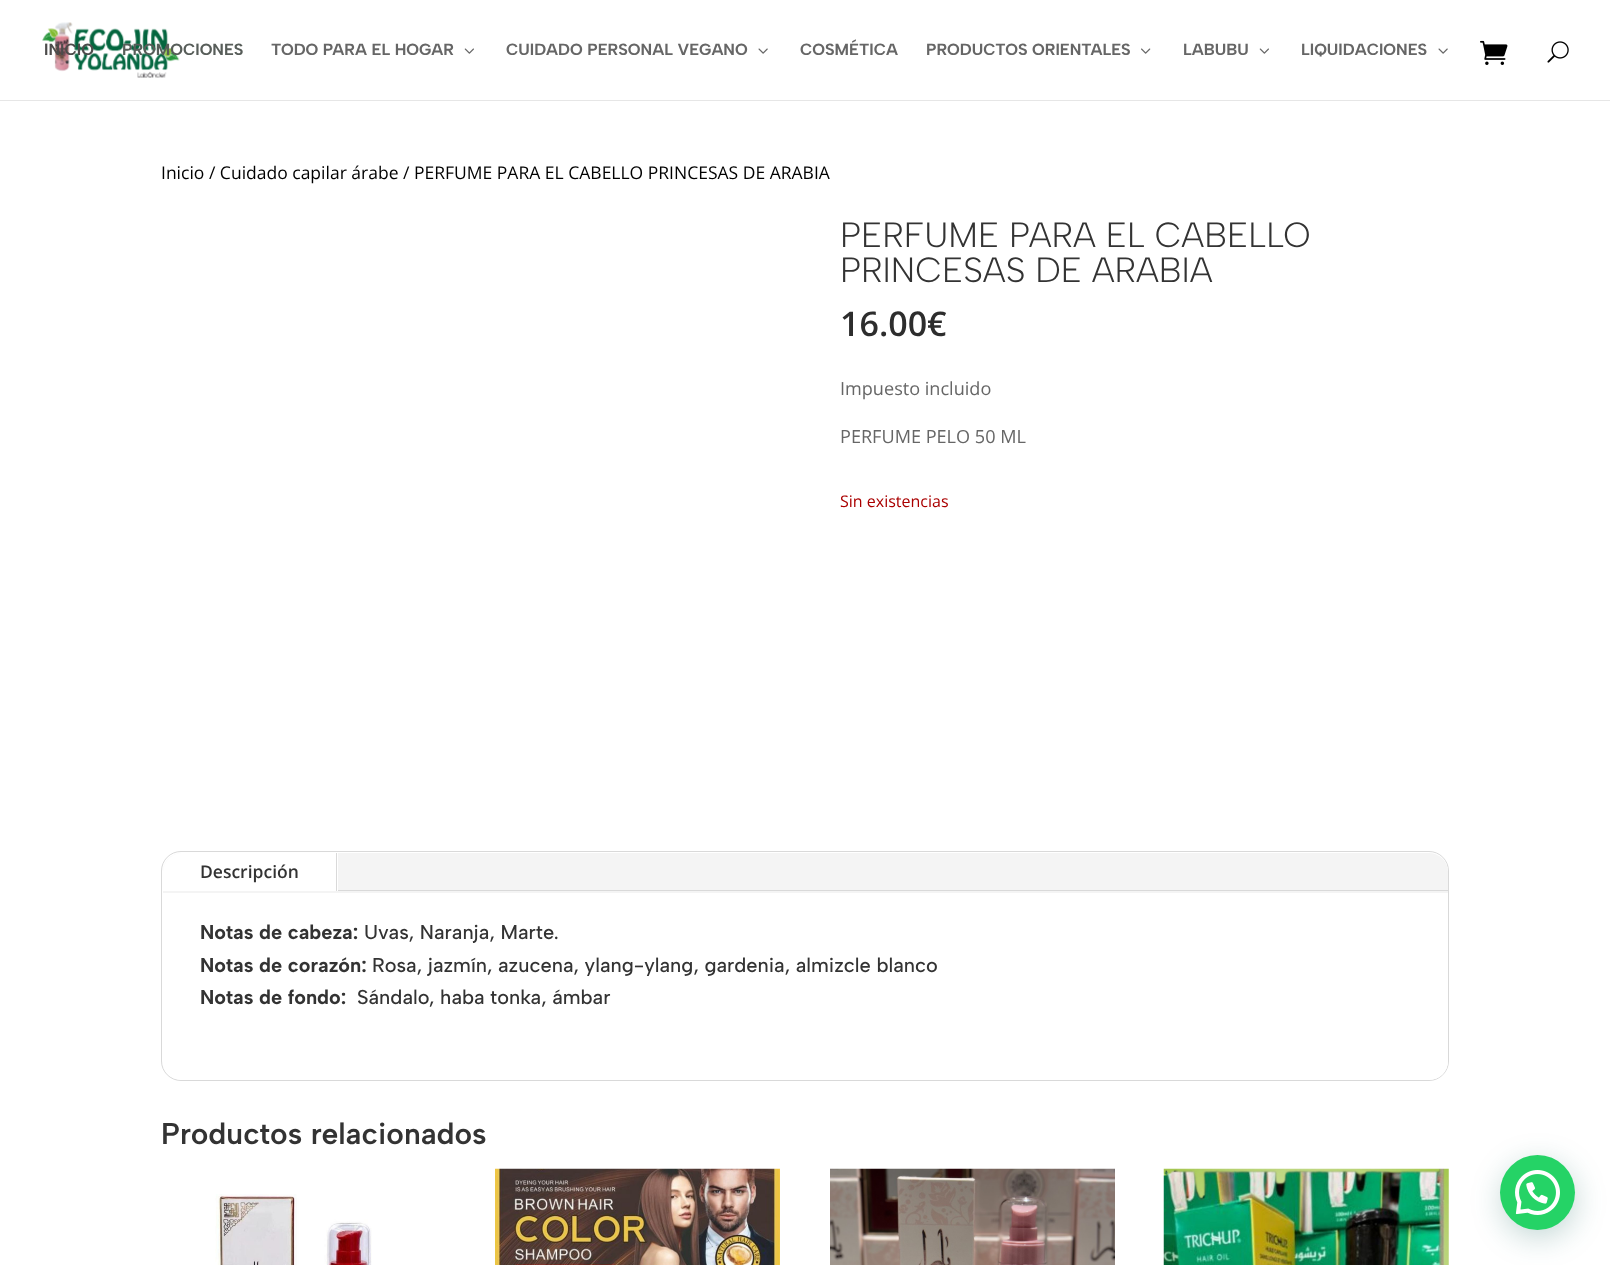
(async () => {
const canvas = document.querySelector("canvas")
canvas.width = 1610
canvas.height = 1265
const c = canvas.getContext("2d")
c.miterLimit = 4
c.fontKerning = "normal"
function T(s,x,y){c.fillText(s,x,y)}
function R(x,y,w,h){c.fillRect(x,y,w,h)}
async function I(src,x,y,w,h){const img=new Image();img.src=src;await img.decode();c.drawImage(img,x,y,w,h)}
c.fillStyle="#fff"
R(0,0,1610,1265)
c.fillStyle="#e6e6e6"
R(0,100,1610,1)
await I("1.png",42,22,138,56)
c.font="bold 16.25px Albert Sans"
c.fillStyle="#4d4c4b"
T("INICIO",44,55)
c.fillStyle="#575d59"
T("PROMOCIONES",122,55)
c.fillStyle="#666"
T("TODO PARA EL HOGAR",271,55)
await I("2.png",464,48,10,6)
T("CUIDADO PERSONAL VEGANO",506,55)
await I("3.png",758,48,10,6)
T("COSMÉTICA",800,55)
T("PRODUCTOS ORIENTALES",926,55)
await I("4.png",1141,48,10,6)
T("LABUBU",1183,55)
await I("2.png",1259,48,10,6)
T("LIQUIDACIONES",1301,55)
await I("3.png",1438,48,10,6)
await I("5.png",1480,40,28,25)
await I("6.png",1547,41,22,22)
c.font="17.5px Open Sans"
c.fillStyle="#000"
T("Inicio / Cuidado capilar árabe / PERFUME PARA EL CABELLO PRINCESAS DE ARABIA",161,179)
c.font="300 35px Albert Sans"
c.fillStyle="#333"
T("PERFUME PARA EL CABELLO",840,247)
T("PRINCESAS DE ARABIA",840,282)
c.font="600 34px Open Sans"
c.fillStyle="#2d2d2d"
T("16.00€",840,336)
c.font="18.1px Open Sans"
c.fillStyle="#666"
T("Impuesto incluido",840,395)
T("PERFUME PELO 50 ML",840,443)
c.font="16px Open Sans"
c.fillStyle="#a00"
T("Sin existencias",840,507)
c.beginPath()
c.roundRect(161.5,851.5,1287,229,19.5)
c.strokeStyle="#d9d9d9"
c.stroke()
c.fillStyle="#f4f4f4"
c.beginPath()
c.roundRect(163,853,1285,40,[19,19,0,0])
c.fill()
c.fillStyle="#fff"
c.beginPath()
c.roundRect(163,853,175,38,[19,0,0,0])
c.fill()
c.fillStyle="#d9d9d9"
R(336,853,1,38)
c.font="600 17.5px Open Sans"
c.fillStyle="#333"
T("Descripción",200,878)
c.fillStyle="#d9d9d9"
R(338,890,1110,1)
c.fillStyle="#fff"
c.beginPath()
c.roundRect(163,893,1285,187,[0,0,19,19])
c.fill()
c.font="bold 20px Albert Sans"
c.fillStyle="#333"
T("Notas de cabeza:",200,939)
c.font="500 20px Albert Sans"
T("Uvas, Naranja, Marte.",364,939)
c.font="bold 20px Albert Sans"
T("Notas de corazón:",200,972)
c.font="500 20px Albert Sans"
T("Rosa, jazmín, azucena, ylang-ylang, gardenia, almizcle blanco",372,972)
c.font="bold 20px Albert Sans"
T("Notas de fondo:",200,1004)
c.font="500 20px Albert Sans"
T("Sándalo, haba tonka, ámbar",357,1004)
c.font="600 30px Albert Sans"
T("Productos relacionados",161,1144)
await I("7.png",215,1194,157,71)
await I("8.png",495,1168,285,97)
await I("9.png",830,1168,285,97)
await I("10.png",1163,1168,286,97)
c.fillStyle="#075e543d"
c.filter="blur(15px)"
c.beginPath()
c.roundRect(1501,1163,75,75,37.5)
c.fill()
c.filter="none"
c.fillStyle="#25d366"
c.beginPath()
c.arc(1537.5,1192.5,37.5,0,7)
c.fill()
await I("11.png",1515,1170,45,45)
})()
